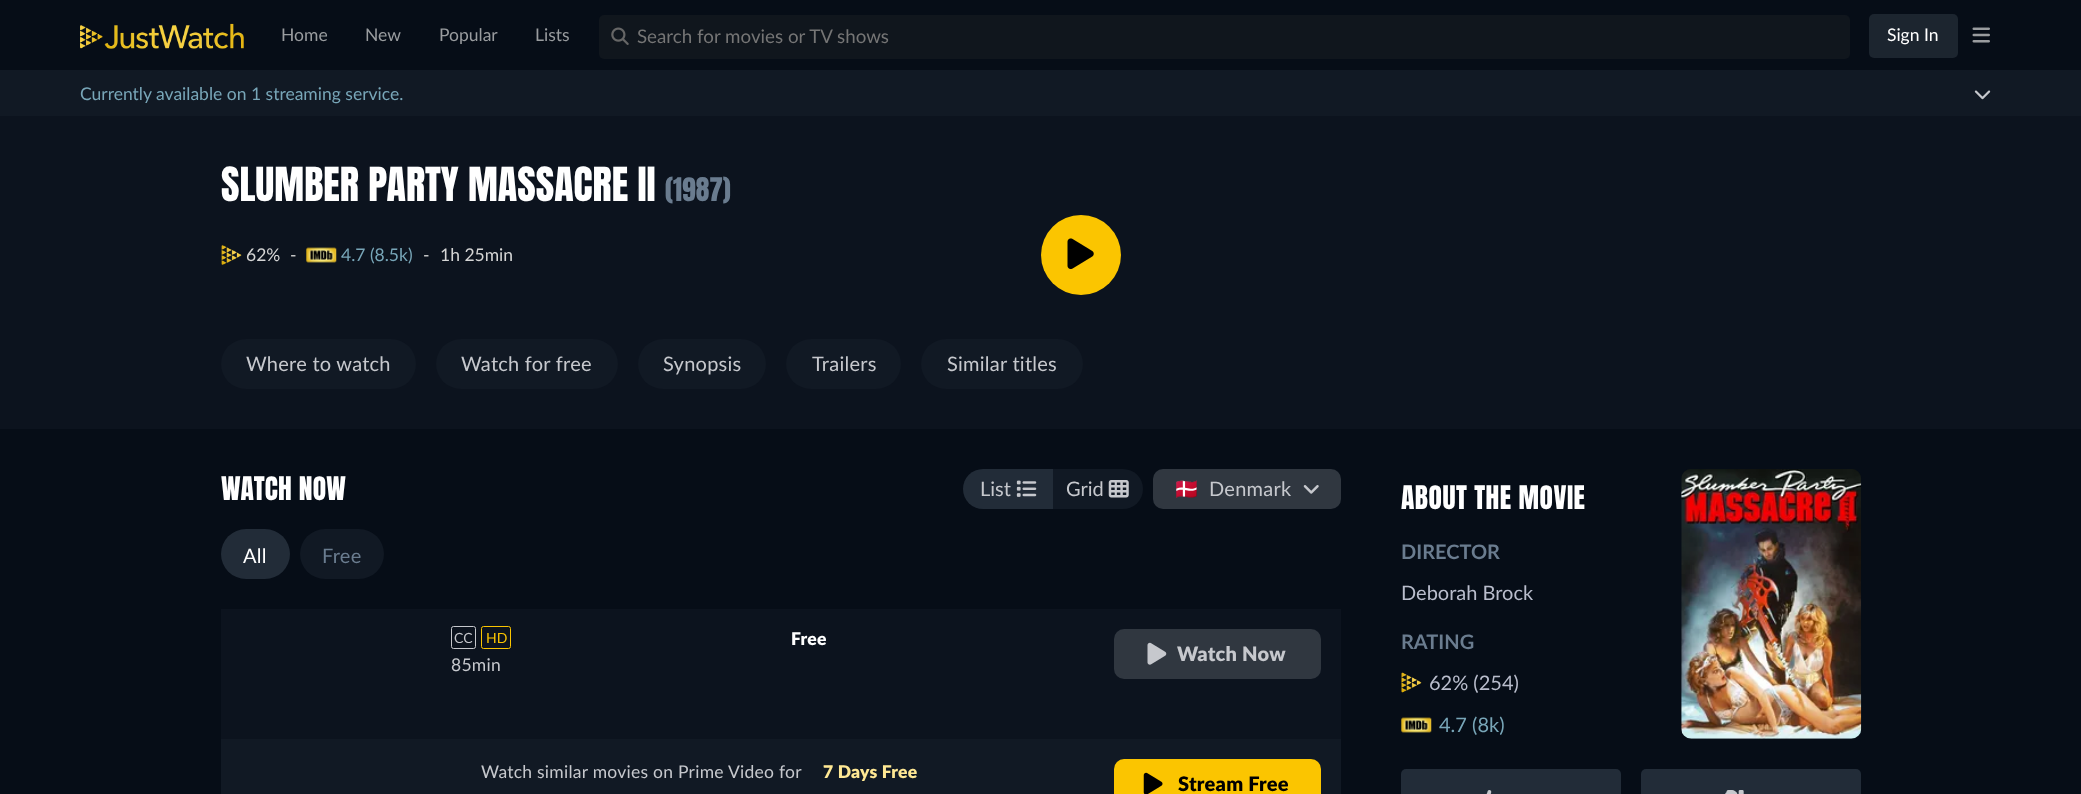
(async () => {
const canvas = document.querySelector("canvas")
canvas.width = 2081
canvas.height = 794
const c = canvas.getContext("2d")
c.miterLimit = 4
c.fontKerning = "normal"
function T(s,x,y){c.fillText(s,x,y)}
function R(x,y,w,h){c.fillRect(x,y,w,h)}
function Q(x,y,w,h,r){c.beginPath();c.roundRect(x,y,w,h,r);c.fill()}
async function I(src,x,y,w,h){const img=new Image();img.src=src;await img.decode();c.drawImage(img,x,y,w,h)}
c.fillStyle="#060d17"
R(0,0,2081,794)
await I("1.png",80,23,164,26)
c.font="17.5px Lato"
c.fillStyle="#999c9f"
T("Home",281,41)
T("New",365,41)
T("Popular",439,41)
T("Lists",535,41)
c.fillStyle="#10161d"
Q(599,15,1251,44,5)
await I("2.png",611,27,18,18)
c.font="18.75px Lato"
c.fillStyle="#757575"
T("Search for movies or TV shows",637,43)
c.fillStyle="#1c252f"
Q(1869,14,89,44,5)
c.font="17.5px Lato"
c.fillStyle="#fff"
T("Sign In",1887,41)
await I("3.png",1972,27,18,16)
c.fillStyle="#111924"
R(0,70,2081,46)
c.fillStyle="#78a6b8"
T("Currently available on 1 streaming service.",80,100)
await I("4.png",1974,90,17,10)
c.fillStyle="#0c131e"
R(0,116,2081,313)
c.font="40px Anton"
c.fillStyle="#fff"
T("SLUMBER PARTY MASSACRE II",221,201)
c.font="27.5px Anton"
c.fillStyle="#6a7c8f"
T("(1987)",665,201)
await I("5.png",221,245,21,20)
c.font="17.5px Lato"
c.fillStyle="#d5d5d5"
T("62%",246,261)
T("-",290,261)
await I("6.png",306,247,31,16)
c.fillStyle="#78a6b8"
T("4.7 (8.5k)",341,261)
c.fillStyle="#d5d5d5"
T("-",423,261)
T("1h 25min",440,261)
c.fillStyle="#111924"
Q(221,339,195,50,25)
c.letterSpacing="0.25px"
c.font="20px Lato"
c.fillStyle="#c6c8cd"
T("Where to watch",246,371)
c.fillStyle="#111924"
Q(436,339,182,50,25)
c.fillStyle="#c6c8cd"
T("Watch for free",461,371)
c.fillStyle="#111924"
Q(638,339,128,50,25)
c.fillStyle="#c6c8cd"
T("Synopsis",663,371)
c.fillStyle="#111924"
Q(786,339,115,50,25)
c.fillStyle="#c6c8cd"
T("Trailers",812,371)
c.fillStyle="#111924"
Q(921,339,162,50,25)
c.fillStyle="#c6c8cd"
T("Similar titles",947,371)
c.fillStyle="#fbc500"
c.beginPath()
c.arc(1081,255,40,0,7)
c.fill()
await I("7.png",1067,238,27,32)
c.font="27.5px Anton"
c.fillStyle="#fff"
T("WATCH NOW",221,500)
c.fillStyle="#222c38"
c.beginPath()
c.roundRect(963,469,90,40,[20,0,0,20])
c.fill()
c.letterSpacing="0px"
c.font="20px Lato"
c.fillStyle="#c6c8cd"
T("List",980,496)
await I("8.png",1016,480,21,17)
c.fillStyle="#111924"
c.beginPath()
c.roundRect(1053,469,90,40,[0,20,20,0])
c.fill()
c.fillStyle="#c6c8cd"
T("Grid",1066,496)
await I("9.png",1108,480,21,18)
c.fillStyle="#303740"
Q(1153,469,188,40,10)
c.letterSpacing="0.25px"
c.font="20px Noto Color Emoji"
c.fillStyle="#c6c8cd"
T("🇩🇰",1174,496)
c.font="20px Lato"
T("Denmark",1209,496)
await I("10.png",1303,485,16,9)
c.fillStyle="#222c38"
Q(221,529,69,50,25)
c.fillStyle="#fff"
T("All",243,563)
c.fillStyle="#111924"
Q(300,529,84,50,25)
c.fillStyle="#6a7c8f"
T("Free",322,563)
c.fillStyle="#0c131e"
R(221,609,1120,130)
c.beginPath()
c.roundRect(451.5,626.5,24,22,2)
c.strokeStyle="#c6c8cd"
c.stroke()
c.letterSpacing="0px"
c.font="14px Lato"
c.fillStyle="#c6c8cd"
T("CC",454,643)
c.beginPath()
c.roundRect(481.5,626.5,29,22,2)
c.strokeStyle="#fbc500"
c.stroke()
c.fillStyle="#fbc500"
T("HD",486,643)
c.letterSpacing="0.25px"
c.font="17.5px Lato"
c.fillStyle="#c6c8cd"
T("85min",451,671)
c.font="900 17.5px Lato"
c.fillStyle="#fff"
T("Free",791,645)
c.fillStyle="#303740"
Q(1114,629,207,50,10)
await I("11.png",1147,642,20,23)
c.font="900 20px Lato"
c.fillStyle="#c6c8cd"
T("Watch Now",1177,661)
c.fillStyle="#111924"
R(221,739,1120,55)
c.font="17.5px Lato"
c.fillStyle="#c6c8cd"
T("Watch similar movies on Prime Video for",481,778)
c.font="900 17.5px Lato"
c.fillStyle="#ffe894"
T("7 Days Free",823,778)
c.fillStyle="#fbc500"
Q(1114,759,207,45,10)
await I("12.png",1143,772,20,22)
c.font="900 20px Lato"
c.fillStyle="#000"
T("Stream Free",1178,791)
c.letterSpacing="0.5px"
c.font="27.5px Anton"
c.fillStyle="#fff"
T("ABOUT THE MOVIE",1401,509)
c.letterSpacing="0px"
c.font="bold 20px Lato"
c.fillStyle="#6a7c8f"
T("DIRECTOR",1401,559)
c.font="20px Lato"
c.fillStyle="#b9bdcc"
T("Deborah Brock",1401,600)
c.font="bold 20px Lato"
c.fillStyle="#6a7c8f"
T("RATING",1401,649)
await I("13.png",1401,672,21,21)
c.font="20px Lato"
c.fillStyle="#b9bdcc"
T("62% (254)",1429,690)
await I("14.png",1401,717,31,16)
c.fillStyle="#78a6b8"
T("4.7 (8k)",1439,732)
await I("15.png",1681,469,181,270)
c.fillStyle="#222c38"
Q(1401,769,220,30,5)
await I("16.png",1486,790,6,4)
Q(1641,769,220,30,5)
await I("17.png",1725,790,19,4)
})()
